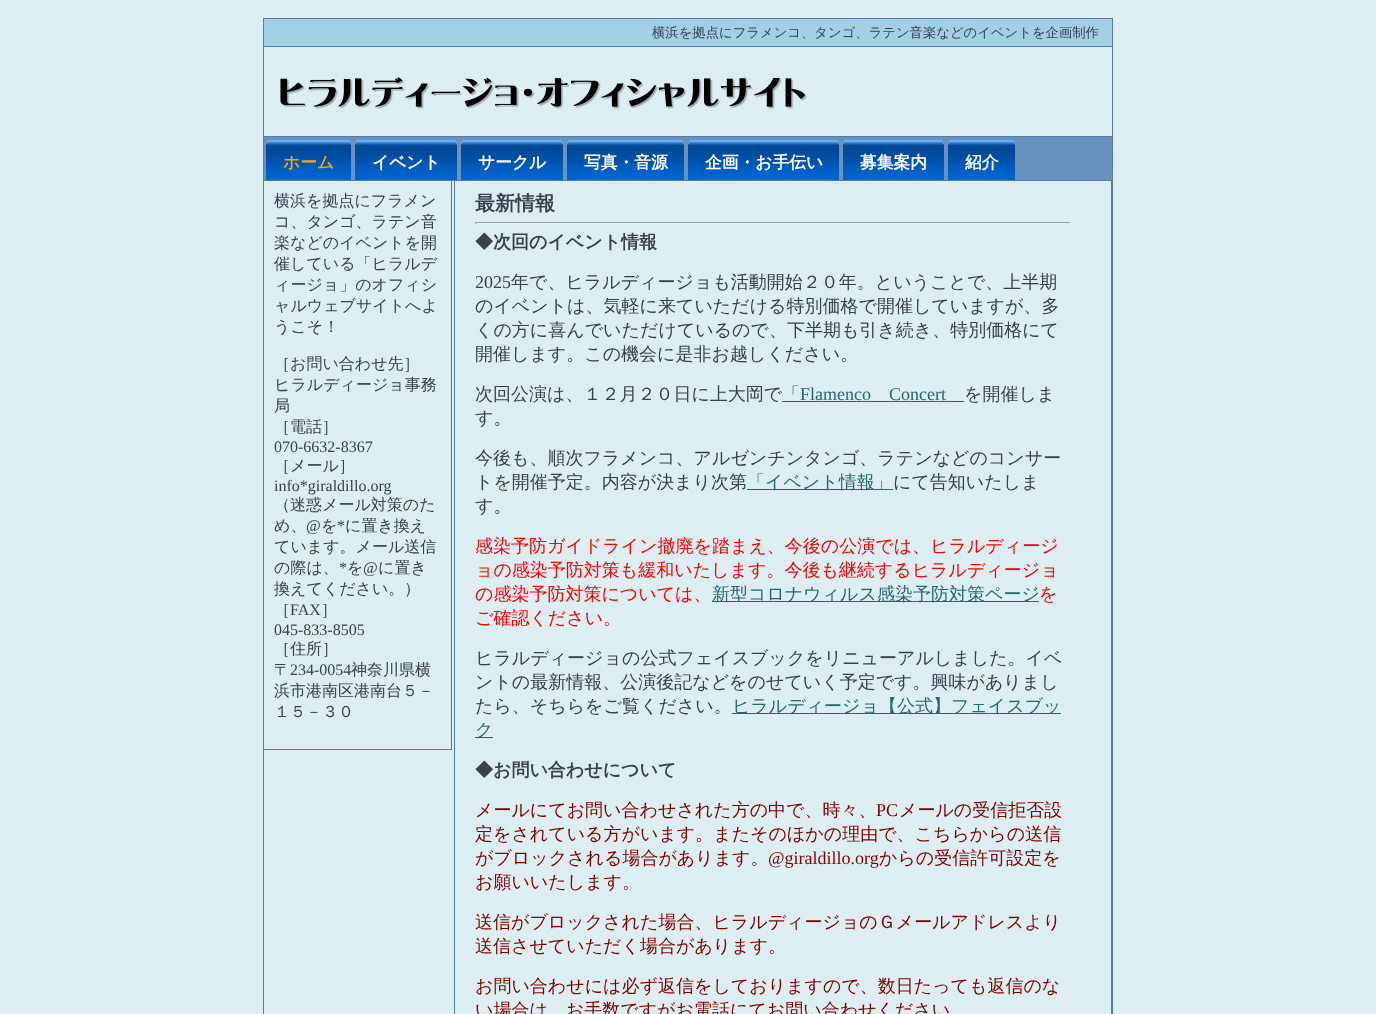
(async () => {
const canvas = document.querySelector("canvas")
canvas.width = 1376
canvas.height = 1014
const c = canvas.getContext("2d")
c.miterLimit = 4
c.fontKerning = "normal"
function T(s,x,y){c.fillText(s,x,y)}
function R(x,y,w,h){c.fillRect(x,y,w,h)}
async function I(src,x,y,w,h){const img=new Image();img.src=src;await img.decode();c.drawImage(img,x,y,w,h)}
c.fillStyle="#dceef2"
R(0,0,1376,1014)
c.strokeStyle="#547da8"
c.strokeRect(263.5,18.5,849,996)
c.fillStyle="#a1cfe6"
R(264,19,848,27)
c.fillStyle="#547da8"
R(264,46,848,1)
c.font="500 13.35px WenQuanYi Zen Hei"
c.fillStyle="#3b404c"
T("横浜を拠点にフラメンコ、タンゴ、ラテン音楽などのイベントを企画制作",652,37)
c.fillStyle="#547da8"
R(264,136,848,1)
await I("1.png",280,77,527,32)
c.fillStyle="#6891bd"
R(264,137,848,43)
c.fillStyle="#547da8"
R(264,180,848,1)
await I("2.png",266,140,8,40)
await I("3.png",343,140,8,40)
await I("4.png",274,140,69,40)
c.font="bold 16.75px WenQuanYi Zen Hei"
c.fillStyle="#ffa500"
T("ホーム",283,168)
await I("2.png",355,140,8,40)
await I("3.png",449,140,8,40)
await I("5.png",363,140,86,40)
c.fillStyle="#fff"
T("イベント",372,168)
await I("2.png",461,140,8,40)
await I("3.png",555,140,8,40)
await I("5.png",469,140,86,40)
T("サークル",478,168)
await I("2.png",567,140,8,40)
await I("3.png",676,140,8,40)
await I("6.png",575,140,101,40)
T("写真・音源",584,168)
await I("2.png",688,140,8,40)
await I("3.png",831,140,8,40)
await I("7.png",696,140,135,40)
T("企画・お手伝い",705,168)
await I("2.png",843,140,8,40)
await I("3.png",936,140,8,40)
await I("8.png",851,140,85,40)
T("募集案内",860,168)
await I("2.png",948,140,8,40)
await I("3.png",1007,140,8,40)
await I("9.png",956,140,51,40)
T("紹介",965,168)
c.fillStyle="#547da8"
R(451,181,1,569)
R(264,749,188,1)
c.font="500 16px WenQuanYi Zen Hei"
c.fillStyle="#3b404c"
T("横浜を拠点にフラメン",274,206)
T("コ、タンゴ、ラテン音",274,227)
T("楽などのイベントを開",274,248)
T("催している「ヒラルデ",274,269)
T("ィージョ」のオフィシ",274,290)
T("ャルウェブサイトへよ",274,311)
T("うこそ！",274,332)
T("［お問い合わせ先］",274,369)
T("ヒラルディージョ事務",274,390)
T("局",274,411)
T("［電話］",274,432)
c.font="16px Liberation Serif"
T("070-6632-8367",274,452)
c.font="500 16px WenQuanYi Zen Hei"
T("［メール］",274,471)
c.font="16px Liberation Serif"
T("info*giraldillo.org",274,491)
c.font="500 16px WenQuanYi Zen Hei"
T("（迷惑メール対策のた",274,510)
T("め、",274,531)
c.font="16px Liberation Serif"
T("@",306,531)
c.font="500 16px WenQuanYi Zen Hei"
T("を",321,531)
c.font="16px Liberation Serif"
T("*",337,531)
c.font="500 16px WenQuanYi Zen Hei"
T("に置き換え",345,531)
T("ています。メール送信",274,552)
T("の際は、",274,573)
c.font="16px Liberation Serif"
T("*",339,573)
c.font="500 16px WenQuanYi Zen Hei"
T("を",347,573)
c.font="16px Liberation Serif"
T("@",363,573)
c.font="500 16px WenQuanYi Zen Hei"
T("に置き",378,573)
T("換えてください。）",274,594)
T("［",274,615)
c.font="16px Liberation Serif"
T("FAX",290,615)
c.font="500 16px WenQuanYi Zen Hei"
T("］",321,615)
c.font="16px Liberation Serif"
T("045-833-8505",274,635)
c.font="500 16px WenQuanYi Zen Hei"
T("［住所］",274,654)
T("〒",274,675)
c.font="16px Liberation Serif"
T("234-0054",290,675)
c.font="500 16px WenQuanYi Zen Hei"
T("神奈川県横",351,675)
T("浜市港南区港南台５－",274,696)
T("１５－３０",274,717)
c.fillStyle="#547da8"
R(1111,181,1,833)
R(454,181,1,833)
c.font="bold 20px WenQuanYi Zen Hei"
c.fillStyle="#3b404c"
T("最新情報",475,210)
c.fillStyle="#9f9f9f"
R(475,222,596,1)
c.fillStyle="#eee"
R(1070,222,1,2)
R(475,223,596,1)
c.fillStyle="#9f9f9f"
R(475,222,1,2)
c.font="bold 18px WenQuanYi Zen Hei"
c.fillStyle="#3b404c"
T("◆次回のイベント情報",475,248)
c.font="18px Liberation Serif"
T("2025",475,288)
c.font="500 18px WenQuanYi Zen Hei"
T("年で、ヒラルディージョも活動開始２０年。ということで、上半期",511,288)
T("のイベントは、気軽に来ていただける特別価格で開催していますが、多",475,312)
T("くの方に喜んでいただけているので、下半期も引き続き、特別価格にて",475,336)
T("開催します。この機会に是非お越しください。",475,360)
T("次回公演は、１２月２０日に上大岡で",475,400)
c.fillStyle="#27686b"
T("「",782,400)
c.font="18px Liberation Serif"
T("Flamenco",800,400)
T("Concert",889,400)
R(782,401,182,1)
c.font="500 18px WenQuanYi Zen Hei"
c.fillStyle="#3b404c"
T("を開催しま",964,400)
T("す。",475,424)
T("今後も、順次フラメンコ、アルゼンチンタンゴ、ラテンなどのコンサー",475,464)
T("トを開催予定。内容が決まり次第",475,488)
c.fillStyle="#27686b"
R(747,489,146,1)
T("「イベント情報」",747,488)
c.fillStyle="#3b404c"
T("にて告知いたしま",893,488)
T("す。",475,512)
c.fillStyle="#f00"
T("感染予防ガイドライン撤廃を踏まえ、今後の公演では、ヒラルディージ",475,552)
T("ョの感染予防対策も緩和いたします。今後も継続するヒラルディージョ",475,576)
T("の感染予防対策については、",475,600)
c.fillStyle="#27686b"
R(712,601,327,1)
T("新型コロナウィルス感染予防対策ページ",712,600)
c.fillStyle="#f00"
T("を",1039,600)
T("ご確認ください。",475,624)
c.fillStyle="#3b404c"
T("ヒラルディージョの公式フェイスブックをリニューアルしました。イベ",475,664)
T("ントの最新情報、公演後記などをのせていく予定です。興味がありまし",475,688)
T("たら、そちらをご覧ください。",475,712)
c.fillStyle="#27686b"
R(732,713,329,1)
T("ヒラルディージョ【公式】フェイスブッ",732,712)
R(475,737,18,1)
T("ク",475,736)
c.font="bold 18px WenQuanYi Zen Hei"
c.fillStyle="#3b404c"
T("◆お問い合わせについて",475,776)
c.font="500 18px WenQuanYi Zen Hei"
c.fillStyle="#800000"
T("メールにてお問い合わせされた方の中で、時々、",475,816)
c.font="18px Liberation Serif"
T("PC",876,816)
c.font="500 18px WenQuanYi Zen Hei"
T("メールの受信拒否設",899,816)
T("定をされている方がいます。またそのほかの理由で、こちらからの送信",475,840)
T("がブロックされる場合があります。",475,864)
c.font="18px Liberation Serif"
T("@giraldillo.org",768,864)
c.font="500 18px WenQuanYi Zen Hei"
T("からの受信許可設定を",879,864)
T("お願いいたします。",475,888)
T("送信がブロックされた場合、ヒラルディージョのＧメールアドレスより",475,928)
T("送信させていただく場合があります。",475,952)
T("お問い合わせには必ず返信をしておりますので、数日たっても返信のな",475,992)
T("い場合は、お手数ですがお電話にてお問い合わせください",475,1016)
})()
